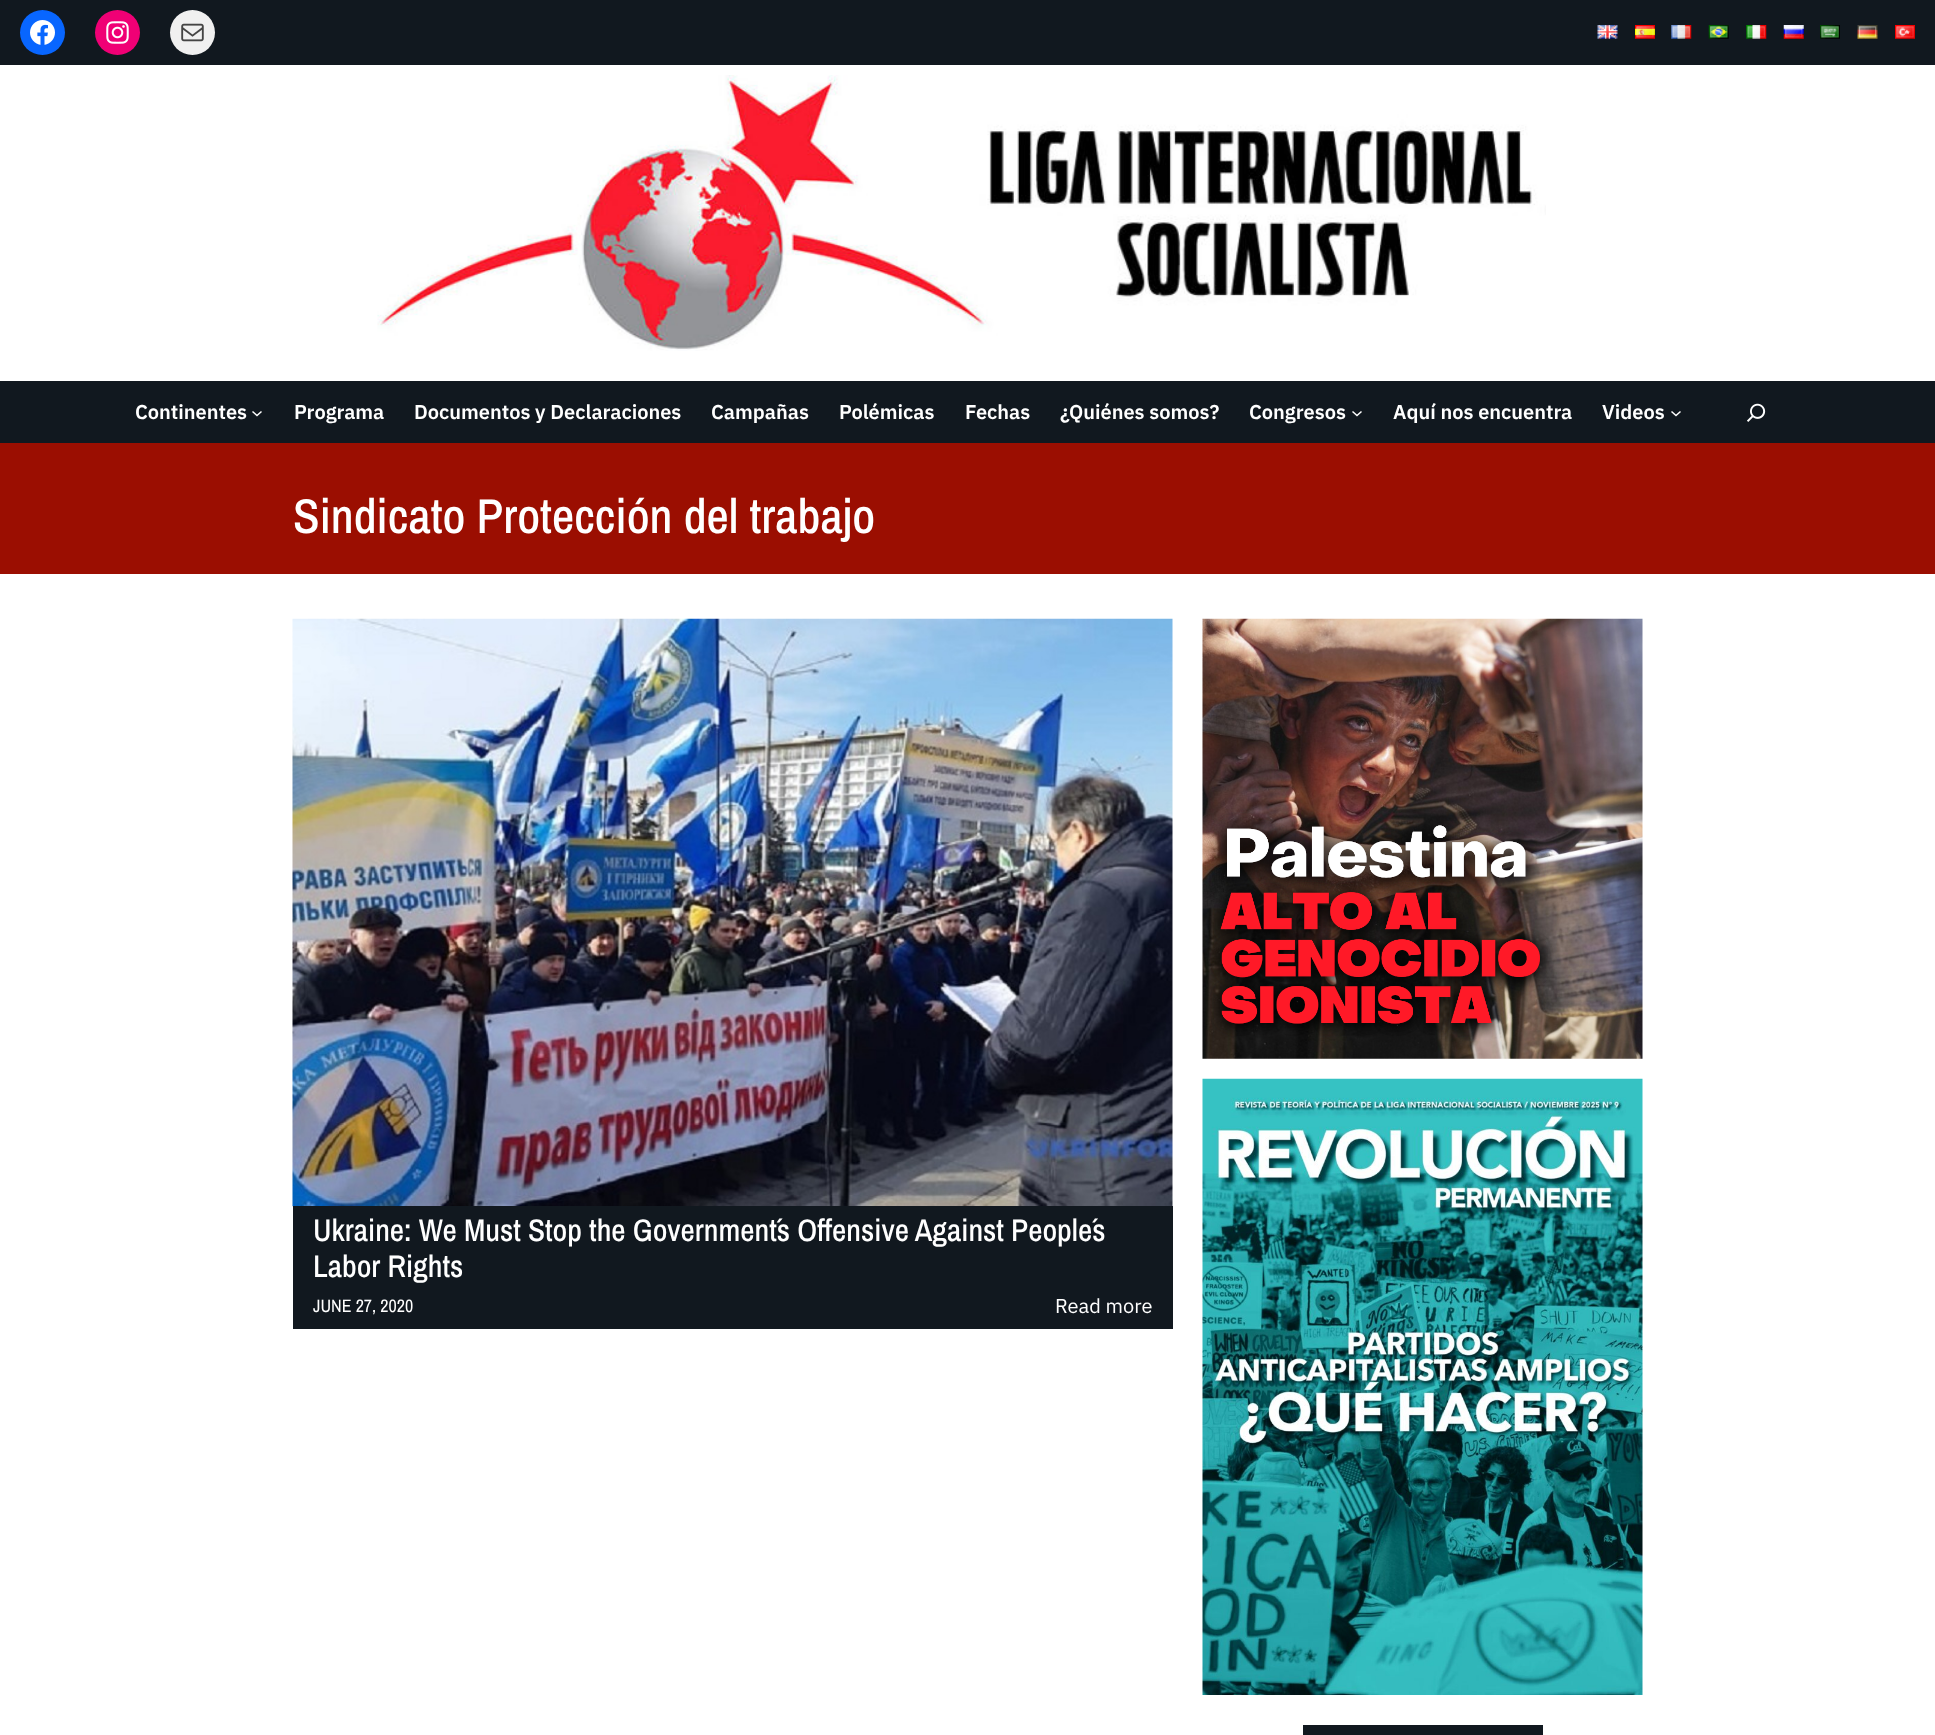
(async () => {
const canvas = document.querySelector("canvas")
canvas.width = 1935
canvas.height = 1735
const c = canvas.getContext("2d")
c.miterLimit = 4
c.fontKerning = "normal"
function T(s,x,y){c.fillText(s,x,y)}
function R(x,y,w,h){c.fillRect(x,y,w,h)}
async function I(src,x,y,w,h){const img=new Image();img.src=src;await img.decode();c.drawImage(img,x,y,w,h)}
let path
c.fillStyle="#fff"
R(0,0,1935,1735)
c.fillStyle="#11181f"
R(0,0,1935,65)
c.fillStyle="#0866ff"
c.beginPath()
c.arc(42.5,32.5,22.5,0,7)
c.fill()
await I("1.png",30,20,25,25)
c.fillStyle="#f00075"
c.beginPath()
c.arc(117.5,32.5,22.5,0,7)
c.fill()
await I("2.png",106,21,23,23)
c.fillStyle="#f0f0f0"
c.beginPath()
c.arc(192.5,32.5,22.5,0,7)
c.fill()
await I("3.png",181,23,23,19)
await I("4.png",1597,25,21,14)
await I("5.png",1635,25,20,14)
await I("6.png",1671,25,21,14)
await I("7.png",1708,25,21,14)
await I("8.png",1746,25,21,14)
await I("9.png",1783,25,21,14)
await I("10.png",1820,25,20,14)
await I("11.png",1857,25,21,14)
await I("12.png",1895,25,20,14)
await I("13.png",377,75,1169,276)
c.fillStyle="#11181f"
R(0,381,1935,62)
c.font="600 20px IBM Plex Sans"
c.fillStyle="#fff"
T("Continentes",135,419)
path = new Path2D("M252.5 411.5l4.5 4l4.5-4")
c.strokeStyle="#fff"
c.lineWidth=1.5
c.stroke(path)
T("Programa",294,419)
T("Documentos y Declaraciones",414,419)
T("Campañas",711,419)
T("Polémicas",839,419)
T("Fechas",965,419)
T("¿Quiénes somos?",1060,419)
T("Congresos",1249,419)
path = new Path2D("M1352.5 411.5l4.5 4l4.5-4")
c.stroke(path)
T("Aquí nos encuentra",1393,419)
T("Videos",1602,419)
path = new Path2D("M1671.5 411.5l4.5 4l4.5-4")
c.stroke(path)
await I("14.png",1747,403,19,19)
c.fillStyle="#9b0e01"
R(0,443,1935,131)
c.font="500 48.75px Archivo Narrow"
c.fillStyle="#fff"
T("Sindicato Protección del trabajo",293,533)
await I("15.png",292,618,881,589)
c.fillStyle="#11181f"
R(293,1206,880,123)
c.font="500 31.25px Archivo Narrow"
c.fillStyle="#fff"
T("Ukraine: We Must Stop the Government´s Offensive Against People´s",313,1241)
T("Labor Rights",313,1277)
c.font="18px Archivo Narrow"
T("JUNE 27, 2020",313,1312)
c.font="20px IBM Plex Sans"
T("Read more",1055,1313)
await I("16.png",1202,618,441,441)
await I("17.png",1202,1078,441,617)
c.fillStyle="#11181f"
R(1303,1725,240,10)
})()
